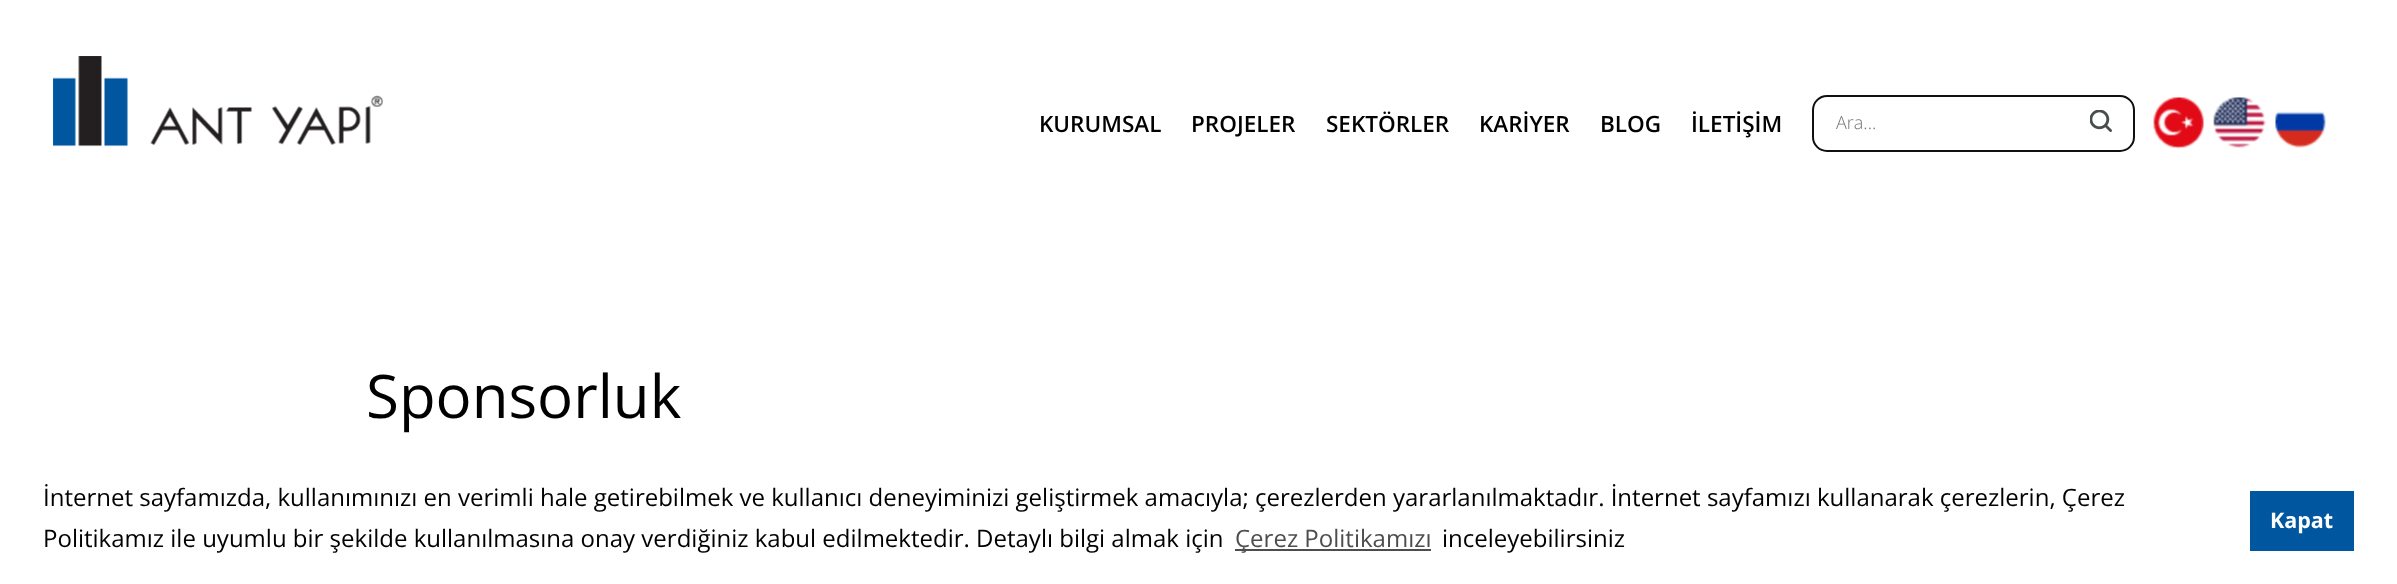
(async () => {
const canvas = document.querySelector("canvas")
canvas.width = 2397
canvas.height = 584
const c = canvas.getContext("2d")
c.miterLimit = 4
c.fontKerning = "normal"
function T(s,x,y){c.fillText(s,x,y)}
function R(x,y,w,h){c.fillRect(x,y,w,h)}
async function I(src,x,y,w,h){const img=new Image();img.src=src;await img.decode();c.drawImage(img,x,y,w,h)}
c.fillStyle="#fff"
R(0,0,2397,584)
await I("1.png",53,56,330,91)
c.font="600 22.5px Open Sans"
c.fillStyle="#000"
T("KURUMSAL",1039,132)
T("PROJELER",1191,132)
T("SEKTÖRLER",1326,132)
T("KARİYER",1479,132)
T("BLOG",1600,132)
T("İLETİŞİM",1691,132)
c.beginPath()
c.roundRect(1813,96,321,55,14)
c.strokeStyle="#0f0f14"
c.lineWidth=2
c.stroke()
c.font="300 18px Open Sans"
c.fillStyle="#757575"
T("Ara...",1836,129)
await I("2.png",2090,110,22,22)
await I("3.png",2153,97,51,52)
await I("4.png",2213,97,53,51)
await I("5.png",2275,111,51,37)
c.font="60px Open Sans"
c.fillStyle="#000"
T("Sponsorluk",366,418)
c.font="24px Open Sans"
T("İnternet sayfamızda, kullanımınızı en verimli hale getirebilmek ve kullanıcı deneyiminizi geliştirmek amacıyla; çerezlerden yararlanılmaktadır. İnternet sayfamızı kullanarak çerezlerin, Çerez",43,506)
T("Politikamız ile uyumlu bir şekilde kullanılmasına onay verdiğiniz kabul edilmektedir. Detaylı bilgi almak için",43,547)
c.fillStyle="#4f4c4d"
R(1235,549,196,2)
T("Çerez Politikamızı",1235,547)
c.fillStyle="#000"
T("inceleyebilirsiniz",1442,547)
c.fillStyle="#0057a0"
R(2250,491,104,60)
c.font="bold 21.5px Open Sans"
c.fillStyle="#fff"
T("Kapat",2270,528)
})()
